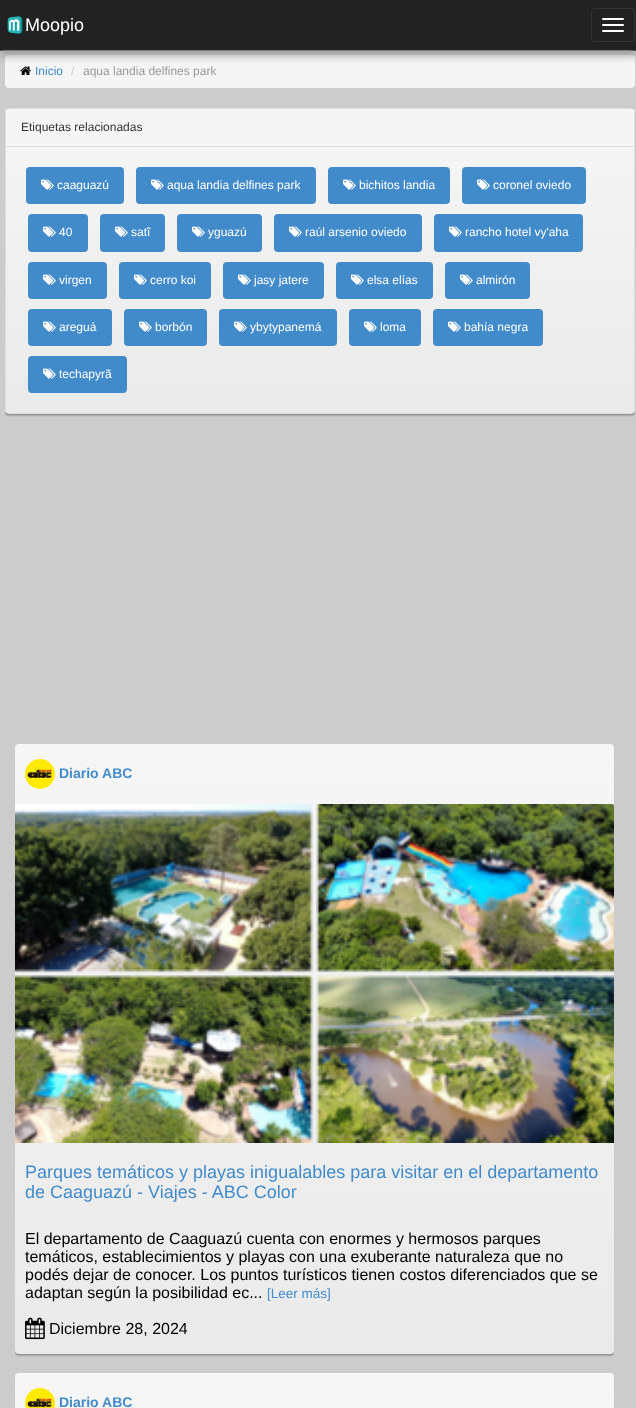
(async () => {
const canvas = document.querySelector("canvas")
canvas.width = 636
canvas.height = 1408
const c = canvas.getContext("2d")
c.miterLimit = 4
c.fontKerning = "normal"
function T(s,x,y){c.fillText(s,x,y)}
function R(x,y,w,h){c.fillRect(x,y,w,h)}
function Q(x,y,w,h,r){c.beginPath();c.roundRect(x,y,w,h,r);c.fill()}
async function I(src,x,y,w,h){const img=new Image();img.src=src;await img.decode();c.drawImage(img,x,y,w,h)}
let gradient
c.fillStyle="#ccc"
R(0,0,636,1408)
c.fillStyle="#222"
R(0,0,636,50)
c.fillStyle="#080808"
R(0,50,636,1)
c.fillStyle="#f5f5f5"
Q(5,55,630,33,4)
await I("2.png",20,66,11,9)
c.save()
c.beginPath()
c.rect(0,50,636,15)
c.clip()
c.fillStyle="#999"
c.filter="blur(5px)"
c.beginPath()
c.rect(0,5,636,50)
c.fill()
c.filter="none"
c.restore()
await I("1.png",7,16,16,18)
c.font="18px Liberation Sans"
c.fillStyle="#fff"
T("Moopio",25,31)
c.beginPath()
c.roundRect(591.5,8.5,43,33,3.5)
c.strokeStyle="#333"
c.stroke()
Q(602,18,22,2,1)
Q(602,24,22,2,1)
Q(602,30,22,2,1)
c.font="12px Liberation Sans"
c.fillStyle="#428bca"
T("Inicio",35,75)
c.fillStyle="#ccc"
T("/",71,75)
c.fillStyle="#999"
T("aqua landia delfines park",83,75)
c.fillStyle="#0000000d"
c.filter="blur(0.5px)"
c.beginPath()
c.roundRect(5,111,630,306,4)
c.fill()
c.filter="none"
c.fillStyle="#0000001a"
c.filter="blur(0.5px)"
c.beginPath()
c.roundRect(5,110,630,306,4)
c.fill()
c.filter="none"
c.fillStyle="#00000026"
c.filter="blur(0.5px)"
c.beginPath()
c.roundRect(5,109,630,306,4)
c.fill()
c.filter="none"
c.save()
c.beginPath()
c.roundRect(5,108,630,306,4)
c.clip()
gradient = c.createLinearGradient(320,109,320,413)
gradient.addColorStop(0,"#f6f6f6")
gradient.addColorStop(1,"#eaeaea")
c.fillStyle = gradient
R(5,109,630,304)
c.restore()
c.beginPath()
c.roundRect(5.5,108.5,629,305,3.5)
c.strokeStyle="#ddd"
c.stroke()
c.fillStyle="#f5f5f5"
c.beginPath()
c.roundRect(6,109,628,38,[3,3,0,0])
c.fill()
c.fillStyle="#ddd"
R(6,146,628,1)
c.fillStyle="#333"
T("Etiquetas relacionadas",21,131)
c.fillStyle="#428bca"
Q(26,167,98,37,4)
await I("3.png",41,179,13,11)
c.fillStyle="#fff"
T("caaguazú",57,189)
c.fillStyle="#428bca"
Q(136,167,180,37,4)
await I("3.png",151,179,13,11)
c.fillStyle="#fff"
T("aqua landia delfines park",167,189)
c.fillStyle="#428bca"
Q(328,167,122,37,4)
await I("3.png",343,179,13,11)
c.fillStyle="#fff"
T("bichitos landia",359,189)
c.fillStyle="#428bca"
Q(462,167,124,37,4)
await I("3.png",477,179,13,11)
c.fillStyle="#fff"
T("coronel oviedo",493,189)
c.fillStyle="#428bca"
Q(28,214,60,38,4)
await I("3.png",43,226,13,11)
c.fillStyle="#fff"
T("40",59,236)
c.fillStyle="#428bca"
Q(100,214,65,38,4)
await I("3.png",115,226,13,11)
c.fillStyle="#fff"
T("satî",131,236)
c.fillStyle="#428bca"
Q(177,214,85,38,4)
await I("3.png",192,226,13,11)
c.fillStyle="#fff"
T("yguazú",208,236)
c.fillStyle="#428bca"
Q(274,214,148,38,4)
await I("3.png",289,226,13,11)
c.fillStyle="#fff"
T("raúl arsenio oviedo",305,236)
c.fillStyle="#428bca"
Q(434,214,149,38,4)
await I("3.png",449,226,13,11)
c.fillStyle="#fff"
T("rancho hotel vy'aha",465,236)
c.fillStyle="#428bca"
Q(28,262,79,37,4)
await I("3.png",43,274,13,11)
c.fillStyle="#fff"
T("virgen",59,284)
c.fillStyle="#428bca"
Q(119,262,92,37,4)
await I("3.png",134,274,13,11)
c.fillStyle="#fff"
T("cerro koi",150,284)
c.fillStyle="#428bca"
Q(223,262,101,37,4)
await I("3.png",238,274,13,11)
c.fillStyle="#fff"
T("jasy jatere",254,284)
c.fillStyle="#428bca"
Q(336,262,97,37,4)
await I("3.png",351,274,13,11)
c.fillStyle="#fff"
T("elsa elías",367,284)
c.fillStyle="#428bca"
Q(445,262,85,37,4)
await I("3.png",460,274,13,11)
c.fillStyle="#fff"
T("almirón",476,284)
c.fillStyle="#428bca"
Q(28,309,84,37,4)
await I("3.png",43,321,13,11)
c.fillStyle="#fff"
T("areguá",59,331)
c.fillStyle="#428bca"
Q(124,309,83,37,4)
await I("3.png",139,321,13,11)
c.fillStyle="#fff"
T("borbón",155,331)
c.fillStyle="#428bca"
Q(219,309,118,37,4)
await I("3.png",234,321,13,11)
c.fillStyle="#fff"
T("ybytypanemá",250,331)
c.fillStyle="#428bca"
Q(349,309,72,37,4)
await I("3.png",364,321,13,11)
c.fillStyle="#fff"
T("loma",380,331)
c.fillStyle="#428bca"
Q(433,309,110,37,4)
await I("3.png",448,321,13,11)
c.fillStyle="#fff"
T("bahía negra",464,331)
c.fillStyle="#428bca"
Q(28,356,99,37,4)
await I("3.png",43,368,13,11)
c.fillStyle="#fff"
T("techapyrã",59,378)
c.fillStyle="#0000000d"
c.filter="blur(0.5px)"
c.beginPath()
c.roundRect(15,747,599,610,4)
c.fill()
c.filter="none"
c.fillStyle="#0000001a"
c.filter="blur(0.5px)"
c.beginPath()
c.roundRect(15,746,599,610,4)
c.fill()
c.filter="none"
c.fillStyle="#00000026"
c.filter="blur(0.5px)"
c.beginPath()
c.roundRect(15,745,599,610,4)
c.fill()
c.filter="none"
gradient = c.createLinearGradient(314,744,315,1354)
gradient.addColorStop(0,"#f6f6f6")
gradient.addColorStop(1,"#eaeaea")
c.fillStyle = gradient
Q(15,744,599,610,4)
await I("4.png",25,759,30,30)
c.font="bold 14px Liberation Sans"
c.fillStyle="#428bca"
T("Diario ABC",59,778)
await I("5.png",15,804,599,339)
c.font="18px Liberation Sans"
T("Parques temáticos y playas inigualables para visitar en el departamento",25,1178)
T("de Caaguazú - Viajes - ABC Color",25,1198)
c.font="16px Liberation Sans"
c.fillStyle="#000"
T("El departamento de Caaguazú cuenta con enormes y hermosos parques",25,1244)
T("temáticos, establecimientos y playas con una exuberante naturaleza que no",25,1262)
T("podés dejar de conocer. Los puntos turísticos tienen costos diferenciados que se",25,1280)
T("adaptan según la posibilidad ec...",25,1298)
c.font="13.5px Liberation Sans"
c.fillStyle="#428bca"
T("[Leer más]",267,1298)
await I("6.png",25,1317,20,23)
c.font="16px Liberation Sans"
c.fillStyle="#000"
T("Diciembre 28, 2024",49,1334)
gradient = c.createLinearGradient(314,1373,315,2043)
gradient.addColorStop(0,"#f6f6f6")
gradient.addColorStop(1,"#eaeaea")
c.fillStyle = gradient
Q(15,1373,599,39,4)
await I("7.png",25,1388,30,20)
c.font="bold 14px Liberation Sans"
c.fillStyle="#428bca"
T("Diario ABC",59,1407)
})()
